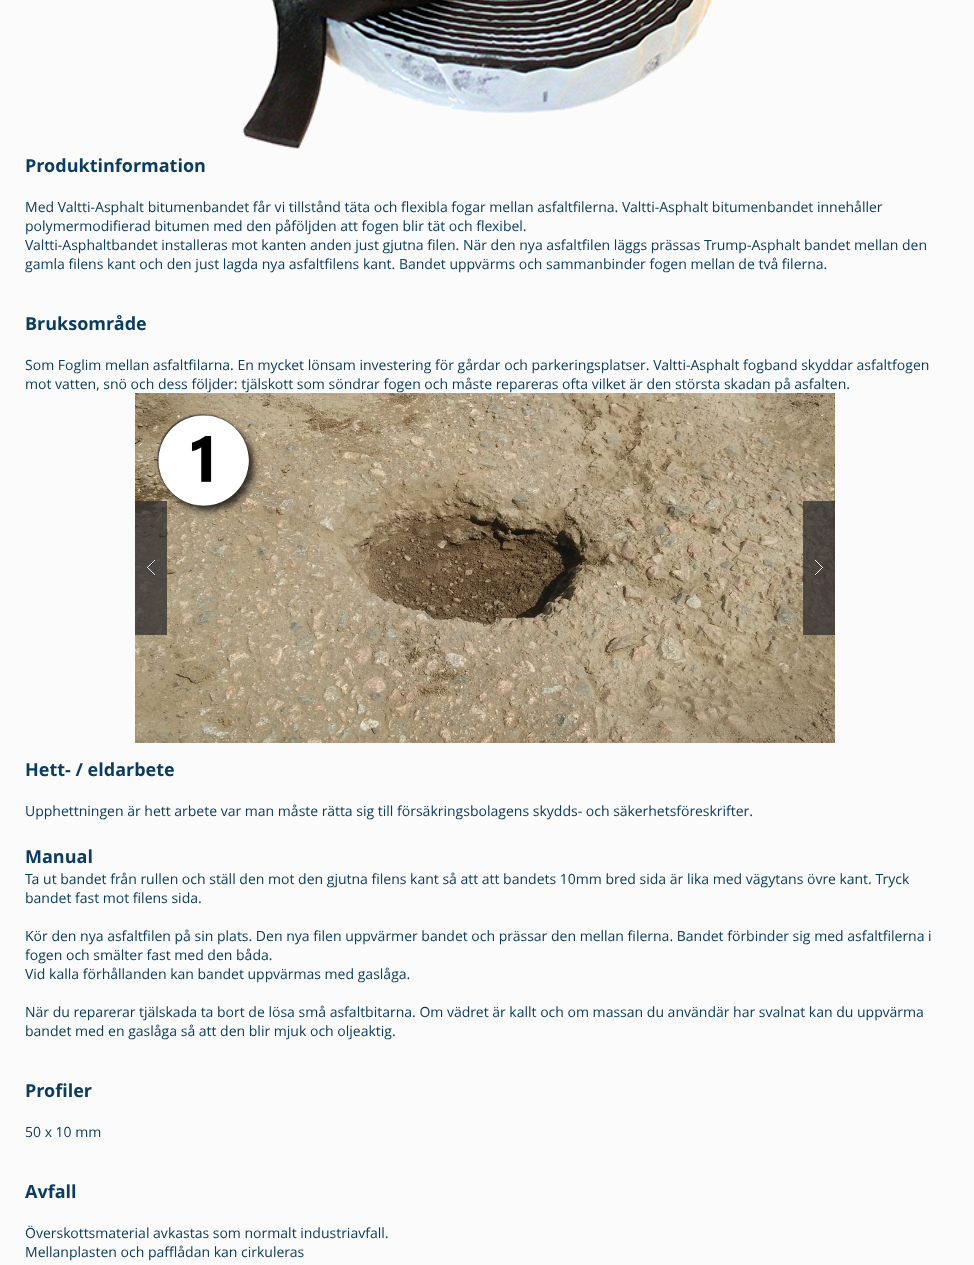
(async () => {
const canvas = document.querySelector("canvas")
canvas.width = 974
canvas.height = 1265
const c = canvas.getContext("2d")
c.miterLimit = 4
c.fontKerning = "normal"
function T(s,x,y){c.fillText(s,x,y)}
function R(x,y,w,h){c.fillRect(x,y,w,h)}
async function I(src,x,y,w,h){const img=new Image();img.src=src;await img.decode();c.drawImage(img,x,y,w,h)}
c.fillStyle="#fbfbfb"
R(0,0,974,1265)
await I("1.png",242,0,471,149)
c.font="bold 18px Open Sans"
c.fillStyle="#0c3c60"
T("Produktinformation",25,172)
c.font="14px Open Sans"
T("Med Valtti-Asphalt bitumenbandet får vi tillstånd täta och flexibla fogar mellan asfaltfilerna. Valtti-Asphalt bitumenbandet innehåller",25,212)
T("polymermodifierad bitumen med den påföljden att fogen blir tät och flexibel.",25,231)
T("Valtti-Asphaltbandet installeras mot kanten anden just gjutna filen. När den nya asfaltfilen läggs prässas Trump-Asphalt bandet mellan den",25,250)
T("gamla filens kant och den just lagda nya asfaltfilens kant. Bandet uppvärms och sammanbinder fogen mellan de två filerna.",25,269)
c.font="bold 18px Open Sans"
T("Bruksområde",25,330)
c.font="14px Open Sans"
T("Som Foglim mellan asfaltfilarna. En mycket lönsam investering för gårdar och parkeringsplatser. Valtti-Asphalt fogband skyddar asfaltfogen",25,370)
T("mot vatten, snö och dess följder: tjälskott som söndrar fogen och måste repareras ofta vilket är den största skadan på asfalten.",25,389)
await I("2.png",135,393,700,350)
c.fillStyle="#2f2e2ebf"
R(135,501,32,134)
await I("3.png",147,560,8,16)
R(803,501,32,134)
await I("4.png",815,560,8,16)
c.font="bold 18px Open Sans"
c.fillStyle="#0c3c60"
T("Hett- / eldarbete",25,776)
c.font="14px Open Sans"
T("Upphettningen är hett arbete var man måste rätta sig till försäkringsbolagens skydds- och säkerhetsföreskrifter.",25,816)
c.font="bold 18px Open Sans"
T("Manual",25,863)
c.font="14px Open Sans"
T("Ta ut bandet från rullen och ställ den mot den gjutna filens kant så att att bandets 10mm bred sida är lika med vägytans övre kant. Tryck",25,884)
T("bandet fast mot filens sida.",25,903)
T("Kör den nya asfaltfilen på sin plats. Den nya filen uppvärmer bandet och prässar den mellan filerna. Bandet förbinder sig med asfaltfilerna i",25,941)
T("fogen och smälter fast med den båda.",25,960)
T("Vid kalla förhållanden kan bandet uppvärmas med gaslåga.",25,979)
T("När du reparerar tjälskada ta bort de lösa små asfaltbitarna. Om vädret är kallt och om massan du användär har svalnat kan du uppvärma",25,1017)
T("bandet med en gaslåga så att den blir mjuk och oljeaktig.",25,1036)
c.font="bold 18px Open Sans"
T("Profiler",25,1097)
c.font="14px Open Sans"
T("50 x 10 mm",25,1137)
c.font="bold 18px Open Sans"
T("Avfall",25,1198)
c.font="14px Open Sans"
T("Överskottsmaterial avkastas som normalt industriavfall.",25,1238)
T("Mellanplasten och pafflådan kan cirkuleras",25,1257)
})()
